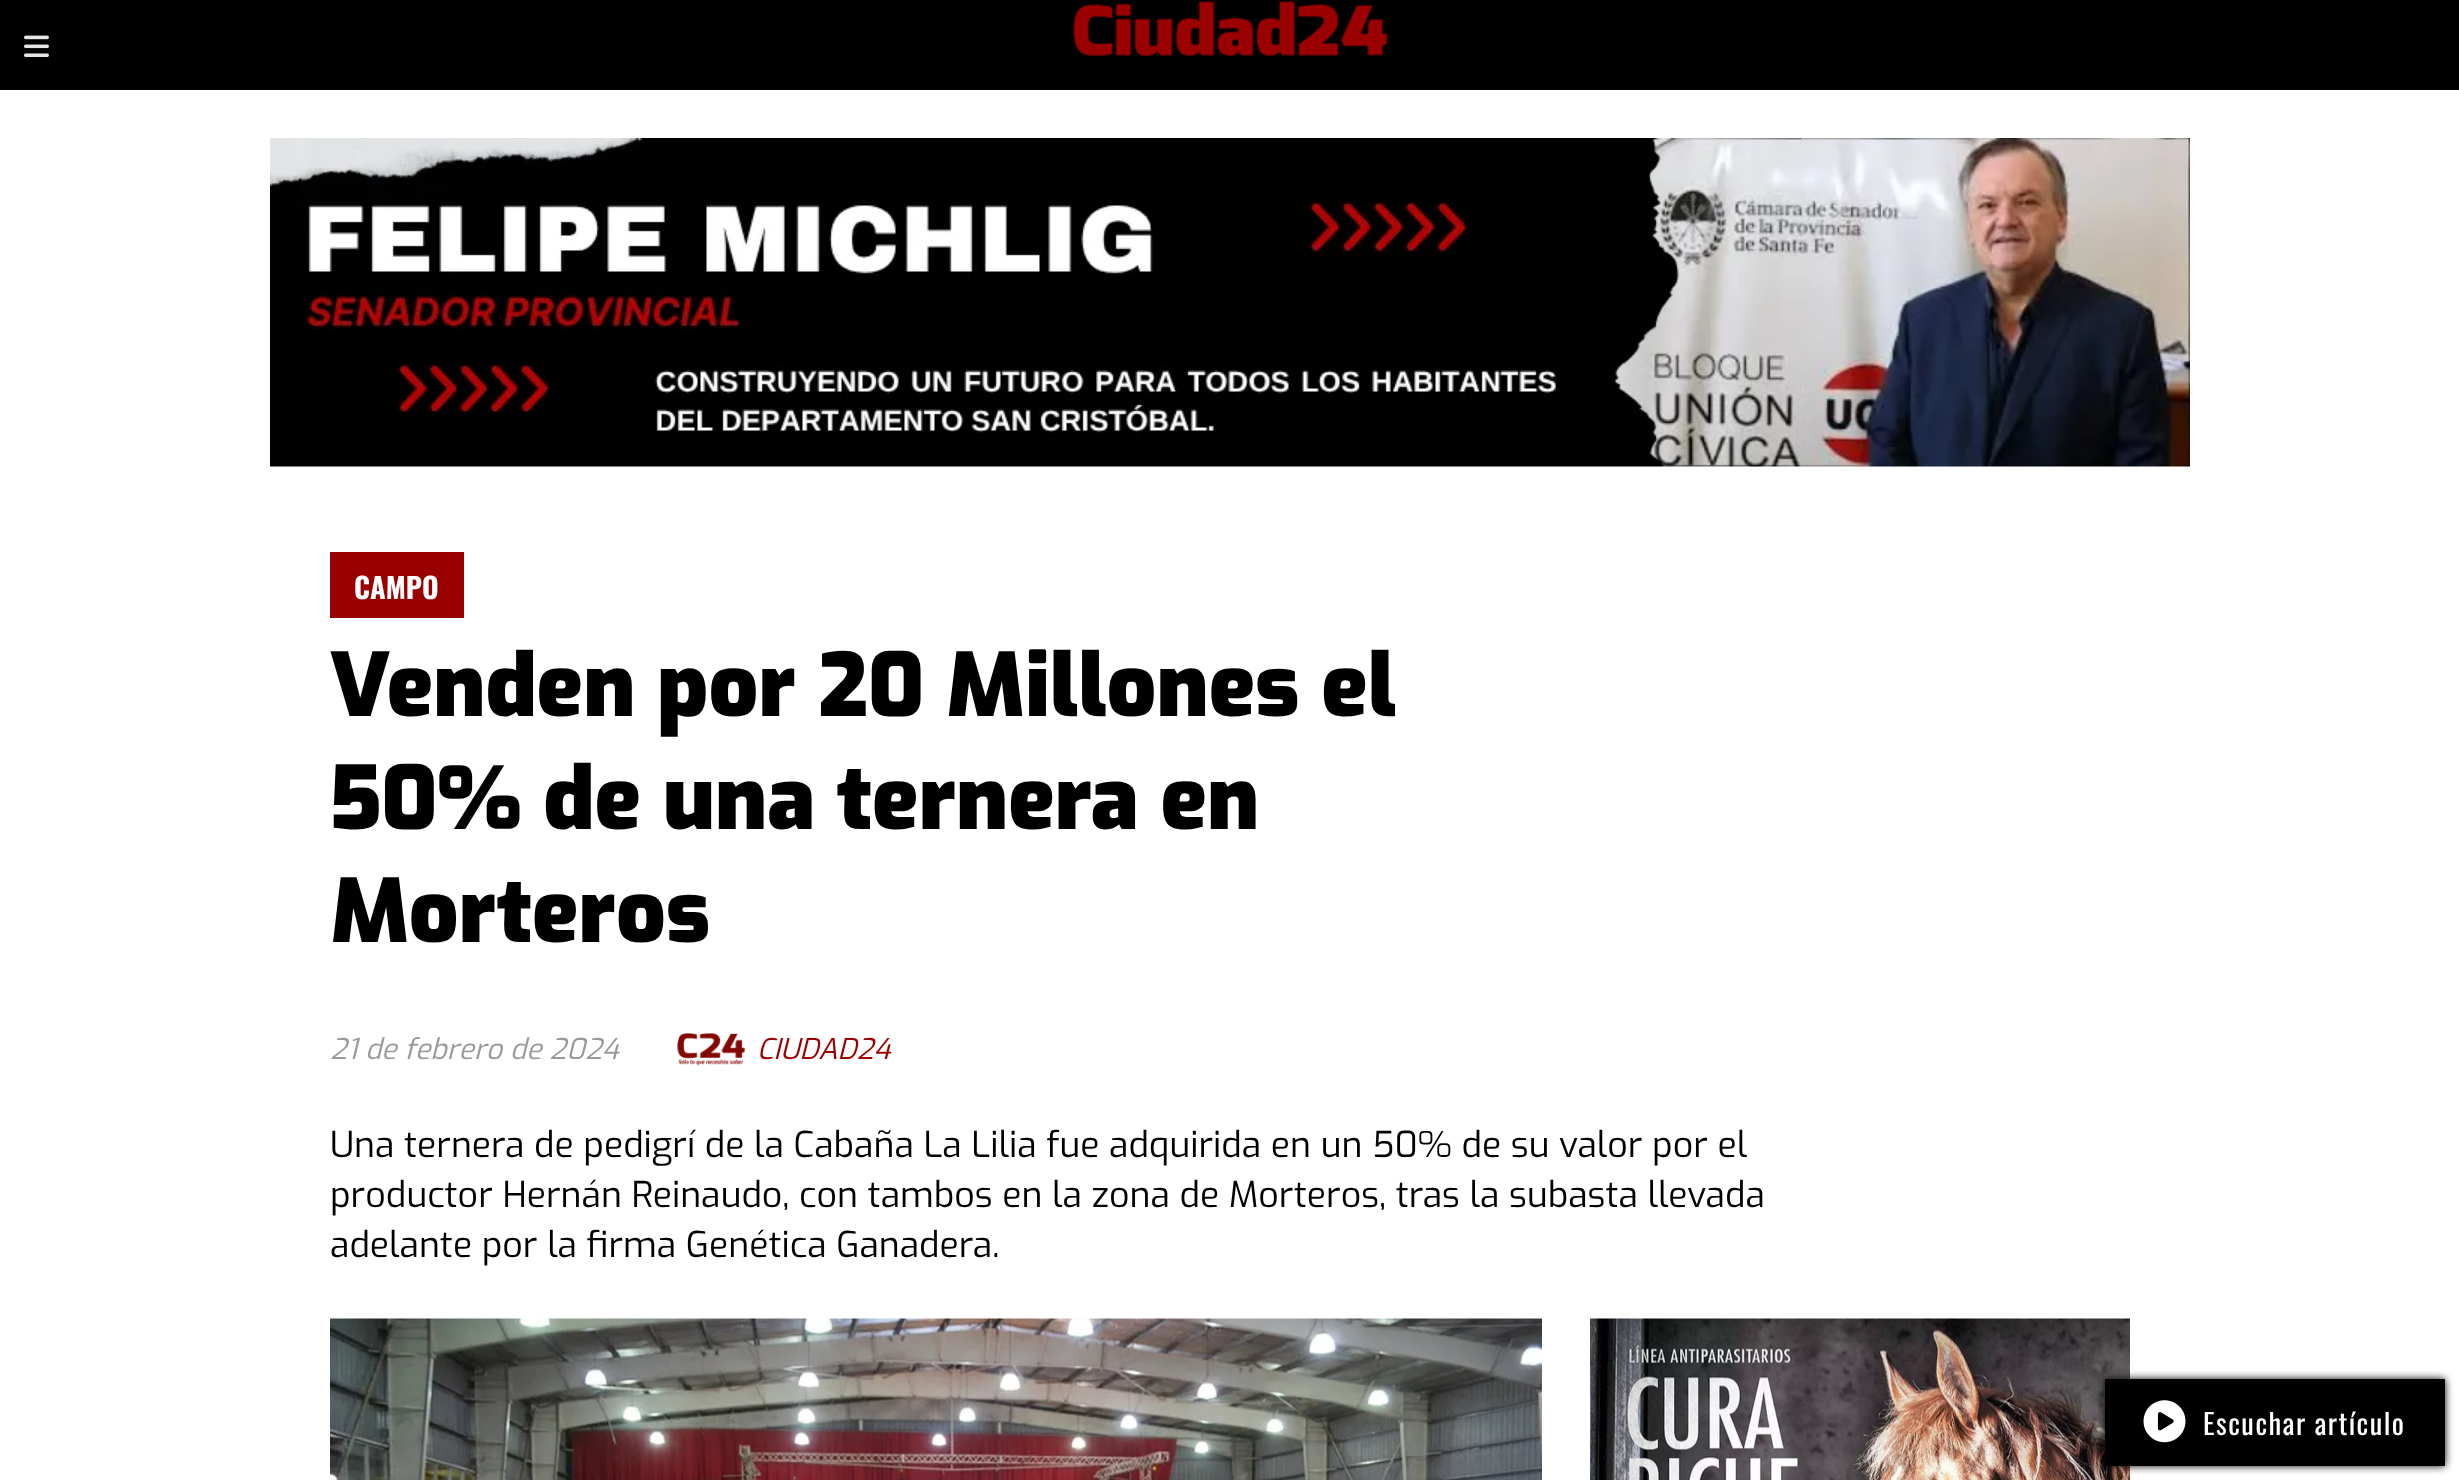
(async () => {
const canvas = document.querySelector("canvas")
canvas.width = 2459
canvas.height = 1480
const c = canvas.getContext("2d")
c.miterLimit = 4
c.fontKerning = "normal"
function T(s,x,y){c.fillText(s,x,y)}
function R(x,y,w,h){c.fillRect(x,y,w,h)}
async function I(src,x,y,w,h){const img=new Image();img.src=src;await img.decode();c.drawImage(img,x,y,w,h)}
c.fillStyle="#fff"
R(0,0,2459,1480)
c.fillStyle="#000"
R(0,0,2459,90)
await I("1.png",24,35,25,22)
await I("2.png",1073,1,315,56)
await I("3.png",270,138,1920,329)
c.fillStyle="#9b0000"
R(330,552,134,66)
c.font="bold 28.5px Oswald"
c.fillStyle="#fff"
T("CAMPO",354,599)
c.font="900 87px Exo"
c.fillStyle="#000"
T("Venden por 20 Millones el",330,716)
T("50% de una ternera en",330,829)
T("Morteros",330,942)
c.font="italic 28.5px Exo"
c.fillStyle="#999"
T("21 de febrero de 2024",330,1059)
await I("4.png",677,1033,68,33)
c.fillStyle="#9b0000"
T("CIUDAD24",757,1059)
c.font="35.6px Exo"
c.fillStyle="#000"
T("Una ternera de pedigrí de la Cabaña La Lilia fue adquirida en un 50% de su valor por el",330,1157)
T("productor Hernán Reinaudo, con tambos en la zona de Morteros, tras la subasta llevada",330,1207)
T("adelante por la firma Genética Ganadera.",330,1257)
await I("5.png",330,1318,1212,162)
await I("6.png",1590,1318,540,162)
c.filter="blur(4.5px)"
c.beginPath()
c.rect(2105,1379,340,87)
c.fill()
c.filter="none"
R(2105,1379,340,87)
await I("7.png",2143,1400,43,43)
c.letterSpacing="1.5px"
c.font="28.5px Oswald"
c.fillStyle="#fff"
T("Escuchar artículo",2203,1435)
})()
